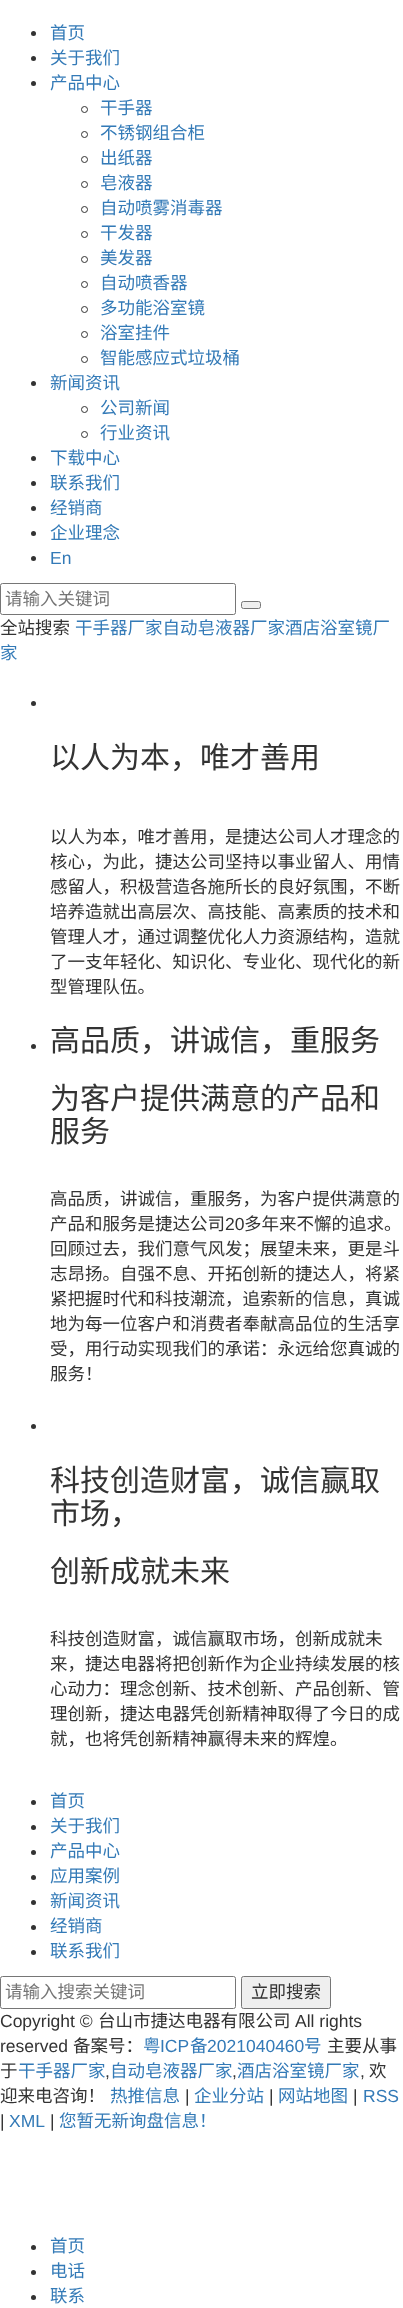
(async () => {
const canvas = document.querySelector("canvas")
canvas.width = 403
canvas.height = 2308
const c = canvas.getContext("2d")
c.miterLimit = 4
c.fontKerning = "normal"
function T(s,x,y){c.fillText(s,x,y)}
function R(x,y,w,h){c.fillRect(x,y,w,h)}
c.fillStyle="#fff"
R(0,0,403,2308)
c.fillStyle="#333"
c.beginPath()
c.arc(33.5,33.5,2.5,0,7)
c.fill()
c.font="17.5px Noto Sans CJK SC"
c.fillStyle="#337ab7"
T("首页",50,39)
c.fillStyle="#333"
c.beginPath()
c.arc(33.5,58.5,2.5,0,7)
c.fill()
c.fillStyle="#337ab7"
T("关于我们",50,64)
c.fillStyle="#333"
c.beginPath()
c.arc(33.5,83.5,2.5,0,7)
c.fill()
c.fillStyle="#337ab7"
T("产品中心",50,89)
c.beginPath()
c.arc(84.5,109.5,3,0,7)
c.strokeStyle="#333"
c.stroke()
T("干手器",100,114)
c.beginPath()
c.arc(84.5,134.5,3,0,7)
c.stroke()
T("不锈钢组合柜",100,139)
c.beginPath()
c.arc(84.5,159.5,3,0,7)
c.stroke()
T("出纸器",100,164)
c.beginPath()
c.arc(84.5,184.5,3,0,7)
c.stroke()
T("皂液器",100,189)
c.beginPath()
c.arc(84.5,209.5,3,0,7)
c.stroke()
T("自动喷雾消毒器",100,214)
c.beginPath()
c.arc(84.5,234.5,3,0,7)
c.stroke()
T("干发器",100,239)
c.beginPath()
c.arc(84.5,259.5,3,0,7)
c.stroke()
T("美发器",100,264)
c.beginPath()
c.arc(84.5,284.5,3,0,7)
c.stroke()
T("自动喷香器",100,289)
c.beginPath()
c.arc(84.5,309.5,3,0,7)
c.stroke()
T("多功能浴室镜",100,314)
c.beginPath()
c.arc(84.5,334.5,3,0,7)
c.stroke()
T("浴室挂件",100,339)
c.beginPath()
c.arc(84.5,359.5,3,0,7)
c.stroke()
T("智能感应式垃圾桶",100,364)
c.fillStyle="#333"
c.beginPath()
c.arc(33.5,383.5,2.5,0,7)
c.fill()
c.fillStyle="#337ab7"
T("新闻资讯",50,389)
c.beginPath()
c.arc(84.5,409.5,3,0,7)
c.stroke()
T("公司新闻",100,414)
c.beginPath()
c.arc(84.5,434.5,3,0,7)
c.stroke()
T("行业资讯",100,439)
c.fillStyle="#333"
c.beginPath()
c.arc(33.5,458.5,2.5,0,7)
c.fill()
c.fillStyle="#337ab7"
T("下载中心",50,464)
c.fillStyle="#333"
c.beginPath()
c.arc(33.5,483.5,2.5,0,7)
c.fill()
c.fillStyle="#337ab7"
T("联系我们",50,489)
c.fillStyle="#333"
c.beginPath()
c.arc(33.5,508.5,2.5,0,7)
c.fill()
c.fillStyle="#337ab7"
T("经销商",50,514)
c.fillStyle="#333"
c.beginPath()
c.arc(33.5,533.5,2.5,0,7)
c.fill()
c.fillStyle="#337ab7"
T("企业理念",50,539)
c.fillStyle="#333"
c.beginPath()
c.arc(33.5,558.5,2.5,0,7)
c.fill()
c.font="17.5px Liberation Sans"
c.fillStyle="#337ab7"
T("En",50,564)
c.beginPath()
c.roundRect(.5,583.5,235,31,2)
c.strokeStyle="#767676"
c.stroke()
c.font="17.5px Noto Sans CJK SC"
c.fillStyle="#757575"
T("请输入关键词",5,605)
c.fillStyle="#efefef"
c.beginPath()
c.roundRect(241.5,601.5,19,7,2)
c.fill()
c.stroke()
c.fillStyle="#333"
T("全站搜索",0,634)
c.fillStyle="#337ab7"
T("干手器厂家自动皂液器厂家酒店浴室镜厂",75,634)
T("家",0,659)
c.fillStyle="#333"
c.beginPath()
c.arc(33.5,703.5,2.5,0,7)
c.fill()
c.font="30px Noto Sans CJK SC"
T("以人为本，唯才善用",50,768)
c.font="17.5px Noto Sans CJK SC"
T("以人为本，唯才善用，是捷达公司人才理念的",50,843)
T("核心，为此，捷达公司坚持以事业留人、用情",50,868)
T("感留人，积极营造各施所长的良好氛围，不断",50,893)
T("培养造就出高层次、高技能、高素质的技术和",50,918)
T("管理人才，通过调整优化人力资源结构，造就",50,943)
T("了一支年轻化、知识化、专业化、现代化的新",50,968)
T("型管理队伍。",50,993)
c.beginPath()
c.arc(33.5,1046.5,2.5,0,7)
c.fill()
c.font="30px Noto Sans CJK SC"
T("高品质，讲诚信，重服务",50,1051)
T("为客户提供满意的产品和",50,1109)
T("服务",50,1142)
c.font="17.5px Noto Sans CJK SC"
T("高品质，讲诚信，重服务，为客户提供满意的",50,1205)
T("产品和服务是捷达公司",50,1230)
c.font="17.5px Liberation Sans"
T("20",225,1230)
c.font="17.5px Noto Sans CJK SC"
T("多年来不懈的追求。",244,1230)
T("回顾过去，我们意气风发；展望未来，更是斗",50,1255)
T("志昂扬。自强不息、开拓创新的捷达人，将紧",50,1280)
T("紧把握时代和科技潮流，追索新的信息，真诚",50,1305)
T("地为每一位客户和消费者奉献高品位的生活享",50,1330)
T("受，用行动实现我们的承诺：永远给您真诚的",50,1355)
T("服务！",50,1380)
c.beginPath()
c.arc(33.5,1426.5,2.5,0,7)
c.fill()
c.font="30px Noto Sans CJK SC"
T("科技创造财富，诚信赢取",50,1491)
T("市场，",50,1524)
T("创新成就未来",50,1582)
c.font="17.5px Noto Sans CJK SC"
T("科技创造财富，诚信赢取市场，创新成就未",50,1645)
T("来，捷达电器将把创新作为企业持续发展的核",50,1670)
T("心动力：理念创新、技术创新、产品创新、管",50,1695)
T("理创新，捷达电器凭创新精神取得了今日的成",50,1720)
T("就，也将凭创新精神赢得未来的辉煌。",50,1745)
c.beginPath()
c.arc(33.5,1802.5,2.5,0,7)
c.fill()
c.fillStyle="#337ab7"
T("首页",50,1807)
c.fillStyle="#333"
c.beginPath()
c.arc(33.5,1827.5,2.5,0,7)
c.fill()
c.fillStyle="#337ab7"
T("关于我们",50,1832)
c.fillStyle="#333"
c.beginPath()
c.arc(33.5,1852.5,2.5,0,7)
c.fill()
c.fillStyle="#337ab7"
T("产品中心",50,1857)
c.fillStyle="#333"
c.beginPath()
c.arc(33.5,1877.5,2.5,0,7)
c.fill()
c.fillStyle="#337ab7"
T("应用案例",50,1882)
c.fillStyle="#333"
c.beginPath()
c.arc(33.5,1902.5,2.5,0,7)
c.fill()
c.fillStyle="#337ab7"
T("新闻资讯",50,1907)
c.fillStyle="#333"
c.beginPath()
c.arc(33.5,1927.5,2.5,0,7)
c.fill()
c.fillStyle="#337ab7"
T("经销商",50,1932)
c.fillStyle="#333"
c.beginPath()
c.arc(33.5,1952.5,2.5,0,7)
c.fill()
c.fillStyle="#337ab7"
T("联系我们",50,1957)
c.beginPath()
c.roundRect(.5,1976.5,235,32,2)
c.stroke()
c.fillStyle="#757575"
T("请输入搜索关键词",5,1998)
c.fillStyle="#efefef"
c.beginPath()
c.roundRect(241.5,1976.5,89,32,2)
c.fill()
c.stroke()
c.fillStyle="#333"
T("立即搜索",251,1998)
c.font="17.5px Liberation Sans"
T("Copyright ©",0,2027)
c.font="17.5px Noto Sans CJK SC"
T("台山市捷达电器有限公司",98,2027)
c.font="17.5px Liberation Sans"
T("All rights",295,2027)
T("reserved",0,2052)
c.font="17.5px Noto Sans CJK SC"
T("备案号：",73,2052)
c.fillStyle="#337ab7"
T("粤",143,2052)
c.font="17.5px Liberation Sans"
T("ICP",160,2052)
c.font="17.5px Noto Sans CJK SC"
T("备",190,2052)
c.font="17.5px Liberation Sans"
T("2021040460",207,2052)
c.font="17.5px Noto Sans CJK SC"
T("号",304,2052)
c.fillStyle="#333"
T("主要从事",327,2052)
T("于",0,2077)
c.fillStyle="#337ab7"
T("干手器厂家",18,2077)
c.font="17.5px Liberation Sans"
c.fillStyle="#333"
T(",",105,2077)
c.font="17.5px Noto Sans CJK SC"
c.fillStyle="#337ab7"
T("自动皂液器厂家",110,2077)
c.font="17.5px Liberation Sans"
c.fillStyle="#333"
T(",",232,2077)
c.font="17.5px Noto Sans CJK SC"
c.fillStyle="#337ab7"
T("酒店浴室镜厂家",237,2077)
c.font="17.5px Liberation Sans"
c.fillStyle="#333"
T(",",360,2077)
c.font="17.5px Noto Sans CJK SC"
T("欢",369,2077)
T("迎来电咨询！",0,2102)
c.fillStyle="#337ab7"
T("热推信息",110,2102)
c.font="17.5px Liberation Sans"
c.fillStyle="#333"
T("|",185,2102)
c.font="17.5px Noto Sans CJK SC"
c.fillStyle="#337ab7"
T("企业分站",194,2102)
c.font="17.5px Liberation Sans"
c.fillStyle="#333"
T("|",269,2102)
c.font="17.5px Noto Sans CJK SC"
c.fillStyle="#337ab7"
T("网站地图",278,2102)
c.font="17.5px Liberation Sans"
c.fillStyle="#333"
T("|",353,2102)
c.fillStyle="#337ab7"
T("RSS",363,2102)
c.fillStyle="#333"
T("|",0,2127)
c.fillStyle="#337ab7"
T("XML",9,2127)
c.fillStyle="#333"
T("|",50,2127)
c.font="17.5px Noto Sans CJK SC"
c.fillStyle="#337ab7"
T("您暂无新询盘信息！",59,2127)
c.fillStyle="#333"
c.beginPath()
c.arc(33.5,2247.5,2.5,0,7)
c.fill()
c.fillStyle="#337ab7"
T("首页",50,2252)
c.fillStyle="#333"
c.beginPath()
c.arc(33.5,2272.5,2.5,0,7)
c.fill()
c.fillStyle="#337ab7"
T("电话",50,2277)
c.fillStyle="#333"
c.beginPath()
c.arc(33.5,2297.5,2.5,0,7)
c.fill()
c.fillStyle="#337ab7"
T("联系",50,2302)
})()
